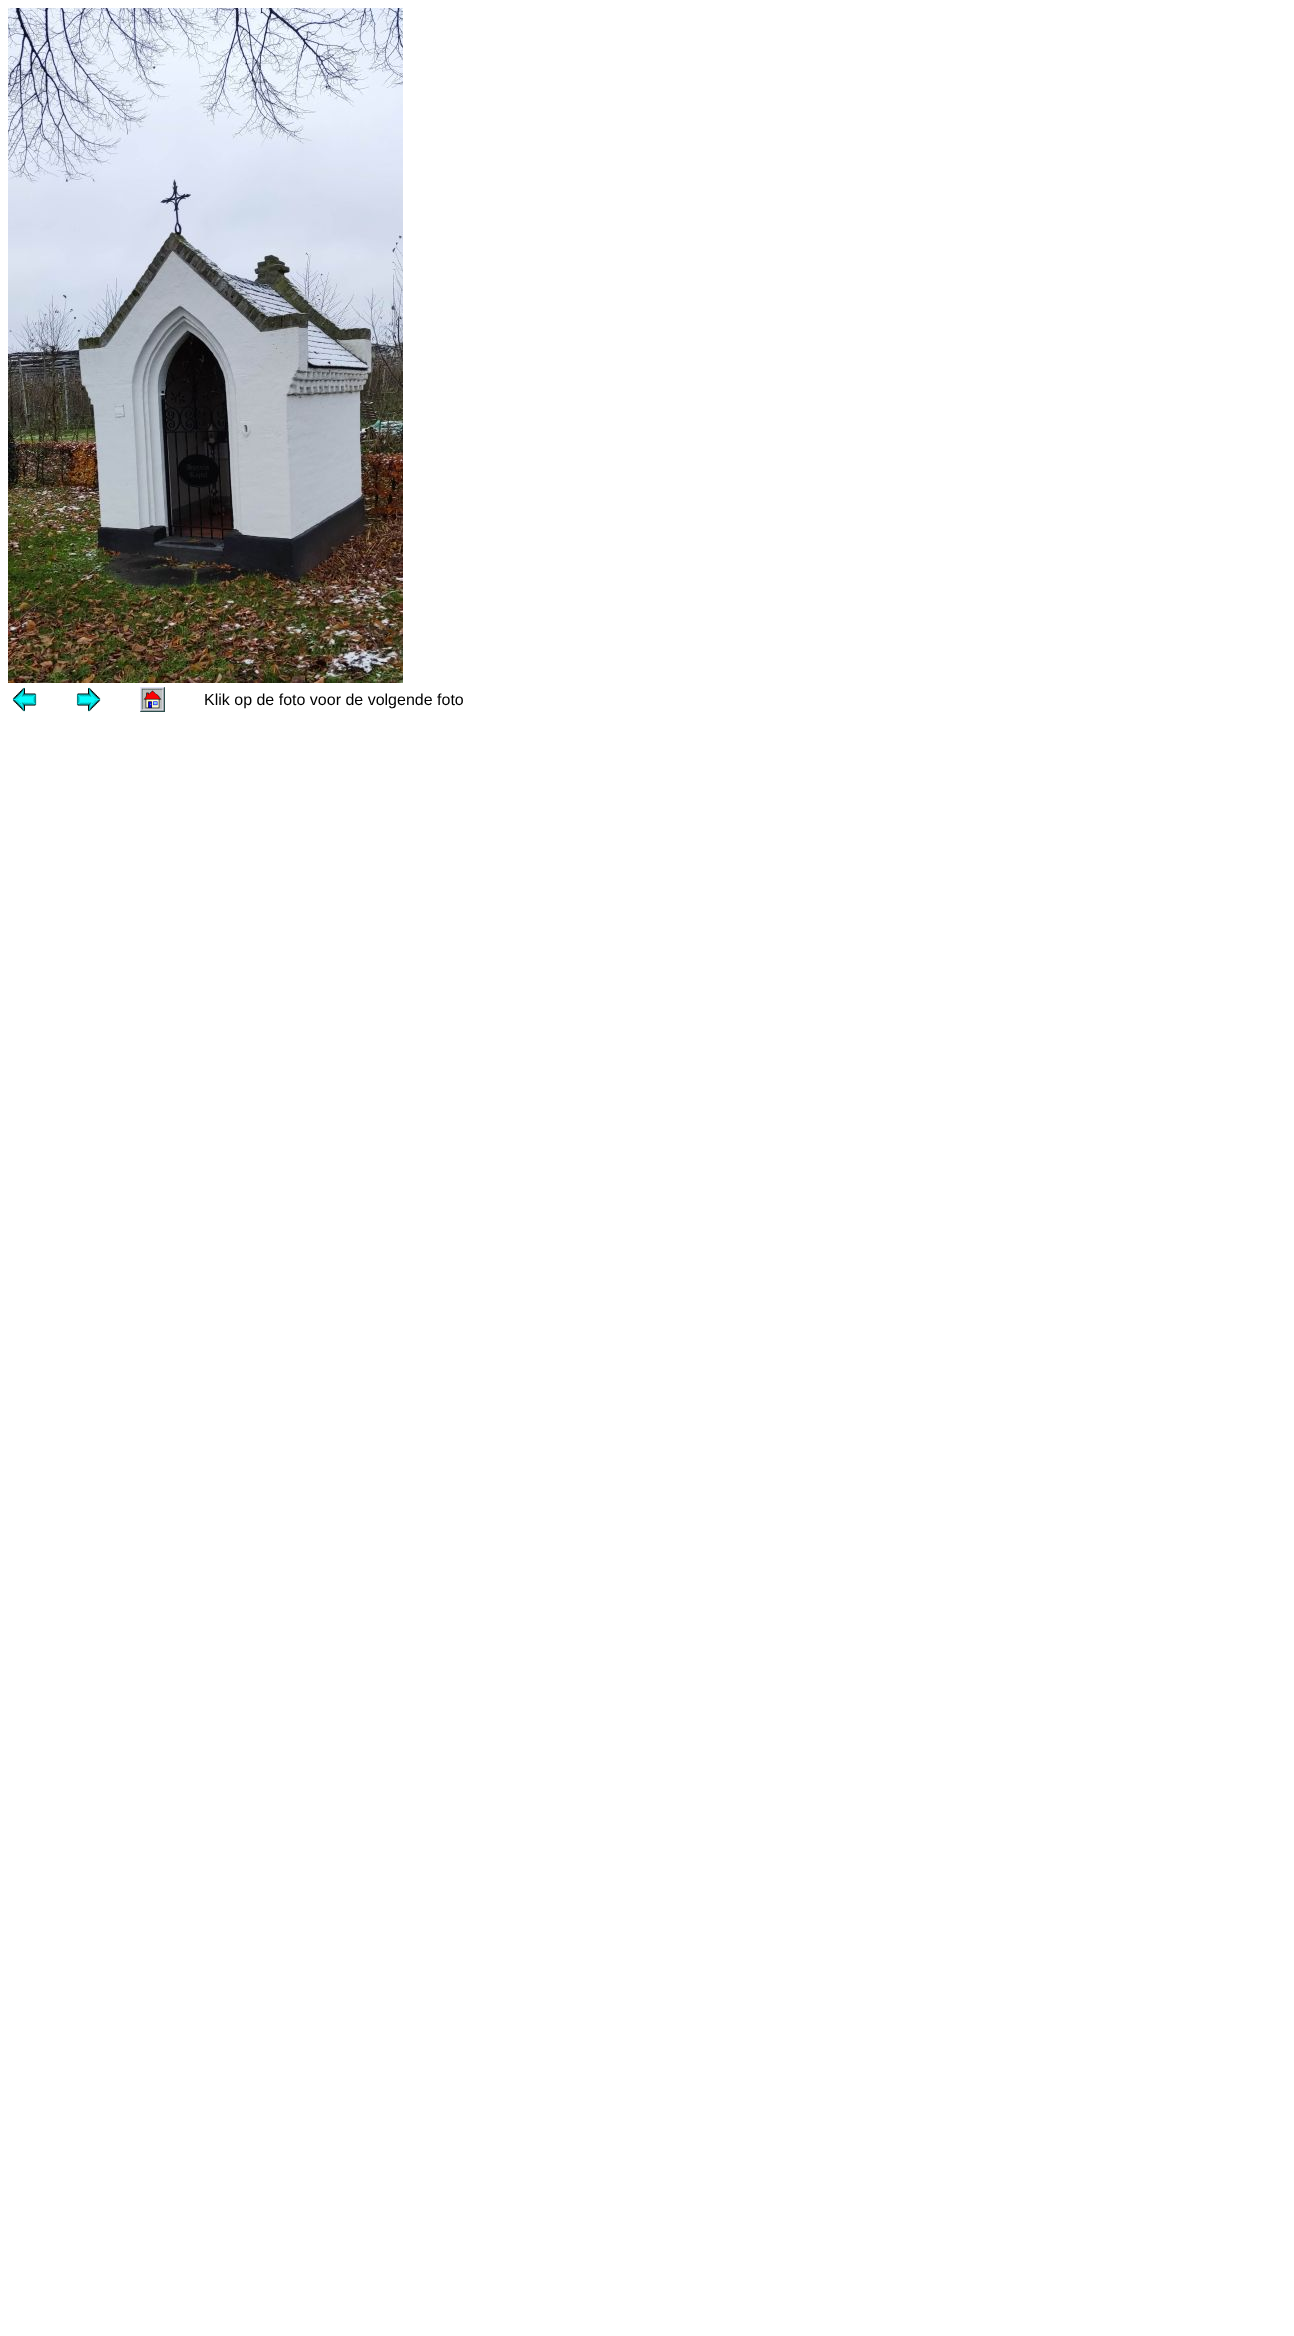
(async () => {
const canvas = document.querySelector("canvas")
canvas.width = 1294
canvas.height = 2336
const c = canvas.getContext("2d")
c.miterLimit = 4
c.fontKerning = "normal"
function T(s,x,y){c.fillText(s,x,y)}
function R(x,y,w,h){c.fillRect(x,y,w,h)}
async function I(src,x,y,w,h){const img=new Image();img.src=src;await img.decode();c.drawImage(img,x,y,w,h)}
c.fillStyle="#fff"
R(0,0,1294,2336)
await I("1.png",8,8,395,675)
await I("2.png",12,687,25,25)
await I("3.png",76,687,25,25)
await I("4.png",140,687,25,25)
c.font="16px Liberation Sans"
c.fillStyle="#000"
T("Klik op de foto voor de volgende foto",204,705)
})()
